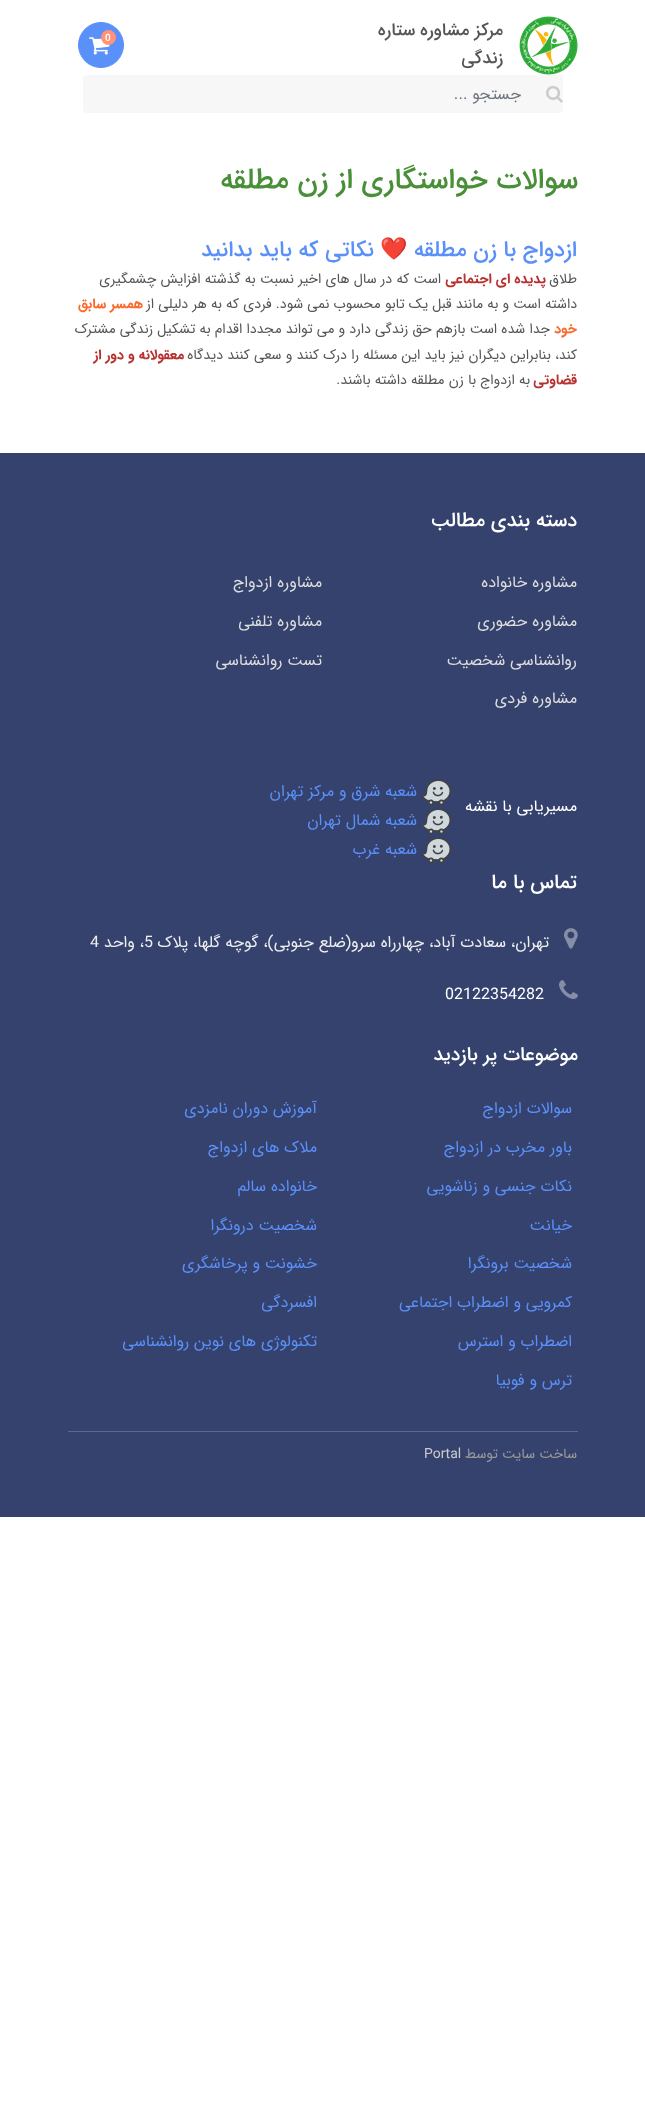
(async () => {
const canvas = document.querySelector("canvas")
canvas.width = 645
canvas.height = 2108
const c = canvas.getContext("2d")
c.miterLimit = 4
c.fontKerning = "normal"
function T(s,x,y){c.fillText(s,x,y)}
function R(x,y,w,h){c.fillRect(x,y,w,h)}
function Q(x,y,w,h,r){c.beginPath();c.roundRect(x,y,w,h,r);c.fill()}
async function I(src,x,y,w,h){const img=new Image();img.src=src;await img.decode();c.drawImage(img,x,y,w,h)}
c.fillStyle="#fff"
R(0,0,645,2108)
await I("1.png",519,16,59,59)
c.direction="rtl"
c.font="500 17.5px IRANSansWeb"
c.fillStyle="#555"
T("مرکز مشاوره ستاره",503,35)
T("زندگی",503,63)
c.fillStyle="#5a90f9"
c.beginPath()
c.arc(101,45,22.5,0,7)
c.fill()
c.strokeStyle="#5a90f9"
c.stroke()
await I("2.png",89,37,21,18)
c.fillStyle="#ff9277"
c.beginPath()
c.arc(108.5,37.5,7.5,0,7)
c.fill()
c.direction="ltr"
c.font="500 10px IRANSansWeb"
c.fillStyle="#fff"
T("0",105,41)
c.fillStyle="#f7f7f7"
Q(83,75,480,38,4)
await I("3.png",546,85,17,18)
c.direction="rtl"
c.font="16px IRANSansWeb"
c.fillStyle="#6c757d"
T("جستجو ...",521,99)
c.font="500 28.75px IRANSansWeb"
c.fillStyle="#488f37"
T("سوالات خواستگاری از زن مطلقه",578,188)
c.font="500 22px IRANSansWeb"
c.fillStyle="#5a90f9"
T("ازدواج با زن مطلقه",577,256)
c.font="22px Noto Color Emoji"
T("❤️",408,256)
c.font="500 22px IRANSansWeb"
T("نکاتی که باید بدانید",374,256)
c.font="14px IRANSansWeb"
c.fillStyle="#555"
T("طلاق",577,283)
c.font="bold 14px IRANSansWeb"
c.fillStyle="#b8312f"
T("پدیده ای اجتماعی",546,283)
c.font="14px IRANSansWeb"
c.fillStyle="#555"
T("است که در سال های اخیر نسبت به گذشته افزایش چشمگیری",441,283)
T("داشته است و به مانند قبل یک تابو محسوب نمی شود. فردی که به هر دلیلی از",577,308)
c.font="bold 14px IRANSansWeb"
c.fillStyle="#f96a2c"
T("همسر سابق",143,308)
T("خود",577,333)
c.font="14px IRANSansWeb"
c.fillStyle="#555"
T("جدا شده است بازهم حق زندگی دارد و می تواند مجددا اقدام به تشکیل زندگی مشترک",550,333)
T("کند، بنابراین دیگران نیز باید این مسئله را درک کنند و سعی کنند دیدگاه",577,359)
c.font="bold 14px IRANSansWeb"
c.fillStyle="#b8312f"
T("معقولانه و دور از",184,359)
T("قضاوتی",577,384)
c.font="14px IRANSansWeb"
c.fillStyle="#555"
T("به ازدواج با زن مطلقه داشته باشند.",530,384)
c.fillStyle="#35426d"
R(0,453,645,1064)
c.font="500 20px IRANSansWeb"
c.fillStyle="#fff"
T("دسته بندی مطالب",577,526)
c.font="16px IRANSansWeb"
c.fillStyle="#ddd"
T("مشاوره خانواده",577,587)
T("مشاوره ازدواج",322,587)
T("مشاوره حضوری",577,626)
T("مشاوره تلفنی",322,626)
T("روانشناسی شخصیت",577,665)
T("تست روانشناسی",322,665)
T("مشاوره فردی",577,703)
c.fillStyle="#fff"
T("مسیریابی با نقشه",577,811)
await I("4.png",422,779,29,27)
c.fillStyle="#5a90f9"
T("شعبه شرق و مرکز تهران",417,796)
await I("4.png",422,808,29,27)
T("شعبه شمال تهران",417,825)
await I("4.png",422,837,29,27)
T("شعبه غرب",417,854)
c.font="500 20px IRANSansWeb"
c.fillStyle="#fff"
T("تماس با ما",577,888)
await I("5.png",564,928,14,21)
c.font="16px IRANSansWeb"
c.fillStyle="#eee"
T("تهران، سعادت آباد، چهارراه سرو(ضلع جنوبی)، گوچه گلها، پلاک",549,947)
c.direction="ltr"
T("5",144,947)
c.direction="rtl"
T("، واحد",144,947)
c.direction="ltr"
T("4",90,947)
await I("6.png",559,980,19,19)
c.fillStyle="#fff"
T("02122354282",445,999)
c.direction="rtl"
c.font="500 19.25px IRANSansWeb"
T("موضوعات پر بازدید",578,1060)
c.font="16px IRANSansWeb"
c.fillStyle="#5a90f9"
T("سوالات ازدواج",572,1113)
T("آموزش دوران نامزدی",317,1113)
T("باور مخرب در ازدواج",572,1152)
T("ملاک های ازدواج",317,1152)
T("نکات جنسی و زناشویی",572,1191)
T("خانواده سالم",317,1191)
T("خیانت",572,1230)
T("شخصیت درونگرا",317,1230)
T("شخصیت برونگرا",572,1268)
T("خشونت و پرخاشگری",317,1268)
T("کمرویی و اضطراب اجتماعی",572,1307)
T("افسردگی",317,1307)
T("اضطراب و استرس",572,1346)
T("تکنولوژی های نوین روانشناسی",317,1346)
T("ترس و فوبیا",572,1385)
c.fillStyle="#5d688a"
R(68,1431,510,1)
c.font="14px IRANSansWeb"
c.fillStyle="#999"
T("ساخت سایت توسط",577,1458)
c.direction="ltr"
c.fillStyle="#ccc"
T("Portal",424,1458)
})()
